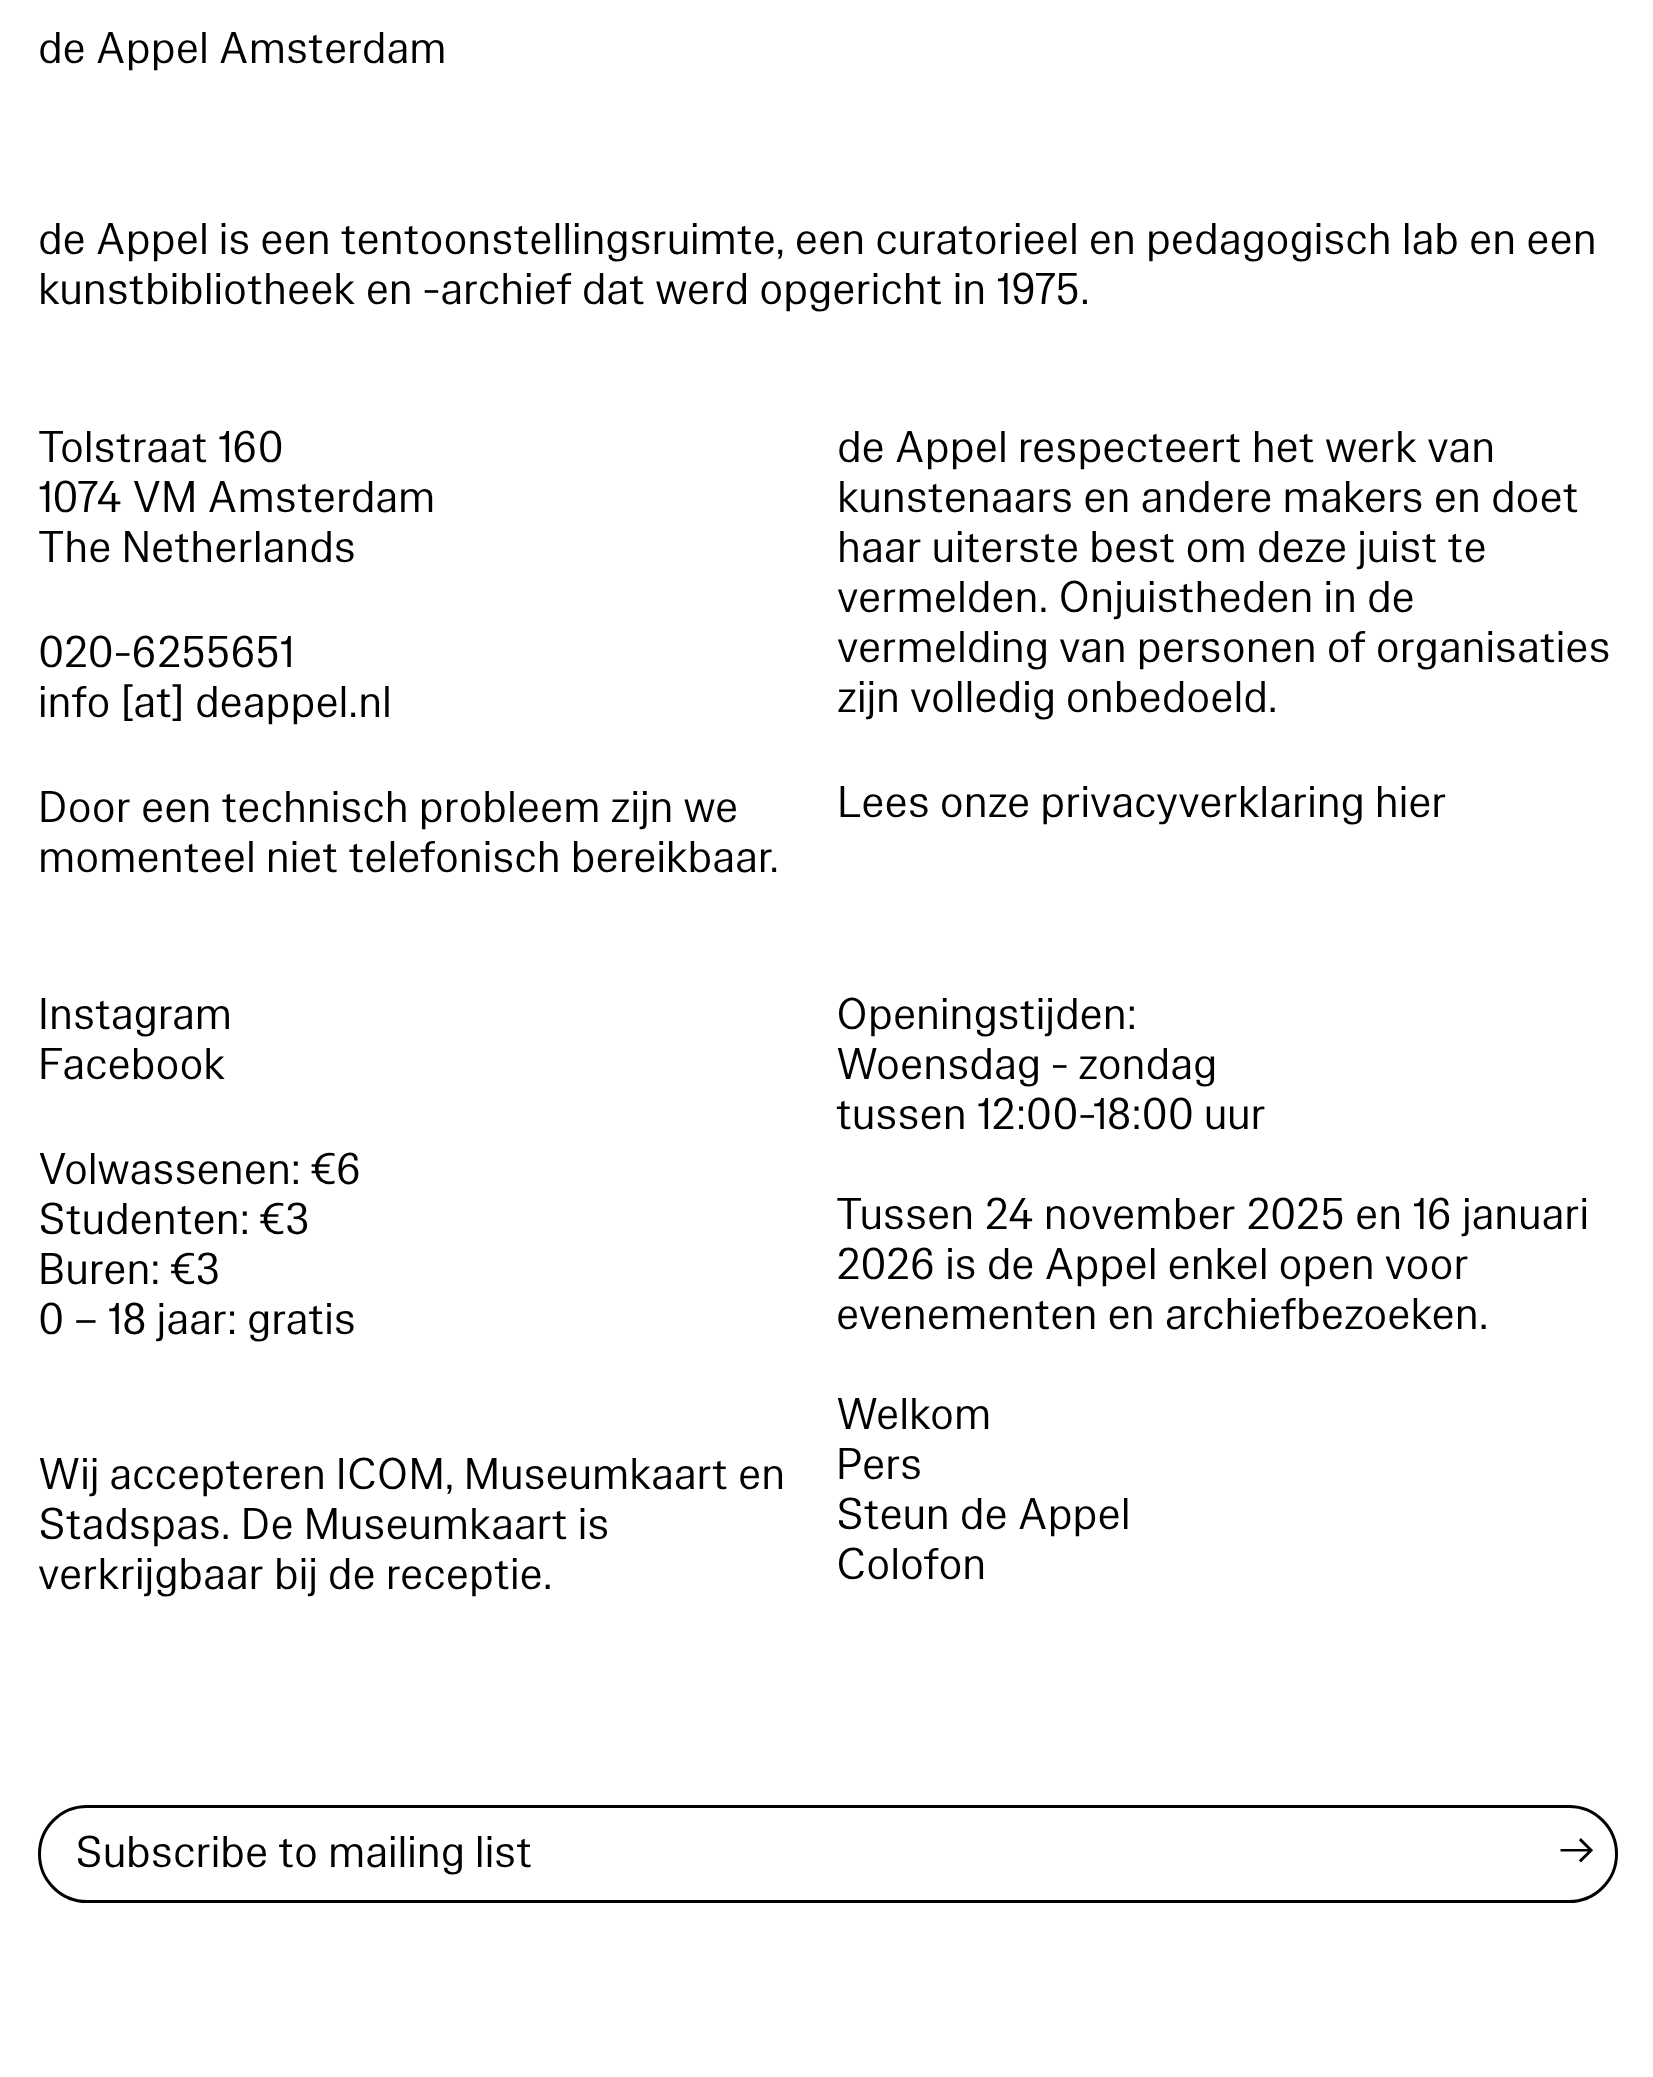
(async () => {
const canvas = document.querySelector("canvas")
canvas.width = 1653
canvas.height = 2077
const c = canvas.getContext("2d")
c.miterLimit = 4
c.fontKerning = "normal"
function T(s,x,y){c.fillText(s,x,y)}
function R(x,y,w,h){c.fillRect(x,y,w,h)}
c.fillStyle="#fff"
R(0,0,1653,2077)
c.font="45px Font"
c.fillStyle="#000"
T("de Appel Amsterdam",38,63)
T("de Appel is een tentoonstellingsruimte, een curatorieel en pedagogisch lab en een",38,254)
T("kunstbibliotheek en -archief dat werd opgericht in 1975.",38,304)
T("Tolstraat 160",38,462)
T("1074 VM Amsterdam",38,512)
T("The Netherlands",38,562)
T("020-6255651",38,667)
T("info [at] deappel.nl",38,717)
T("Door een technisch probleem zijn we",38,822)
T("momenteel niet telefonisch bereikbaar.",38,872)
T("de Appel respecteert het werk van",837,462)
T("kunstenaars en andere makers en doet",837,512)
T("haar uiterste best om deze juist te",837,562)
T("vermelden. Onjuistheden in de",837,612)
T("vermelding van personen of organisaties",837,662)
T("zijn volledig onbedoeld.",837,712)
T("Lees onze privacyverklaring hier",837,817)
T("Instagram",38,1029)
T("Facebook",38,1079)
T("Volwassenen: €6",38,1184)
T("Studenten: €3",38,1234)
T("Buren: €3",38,1284)
T("0 – 18 jaar: gratis",38,1334)
T("Wij accepteren ICOM, Museumkaart en",38,1489)
T("Stadspas. De Museumkaart is",38,1539)
T("verkrijgbaar bij de receptie.",38,1589)
T("Openingstijden:",836,1029)
T("Woensdag - zondag",836,1079)
T("tussen 12:00-18:00 uur",836,1129)
T("Tussen 24 november 2025 en 16 januari",836,1229)
T("2026 is de Appel enkel open voor",836,1279)
T("evenementen en archiefbezoeken.",836,1329)
T("Welkom",836,1429)
T("Pers",836,1479)
T("Steun de Appel",836,1529)
T("Colofon",836,1579)
c.beginPath()
c.roundRect(39.5,1806.5,1577,95,47.5)
c.strokeStyle="#000"
c.lineWidth=3
c.stroke()
T("Subscribe to mailing list",75,1867)
T("→",1557,1865)
})()
